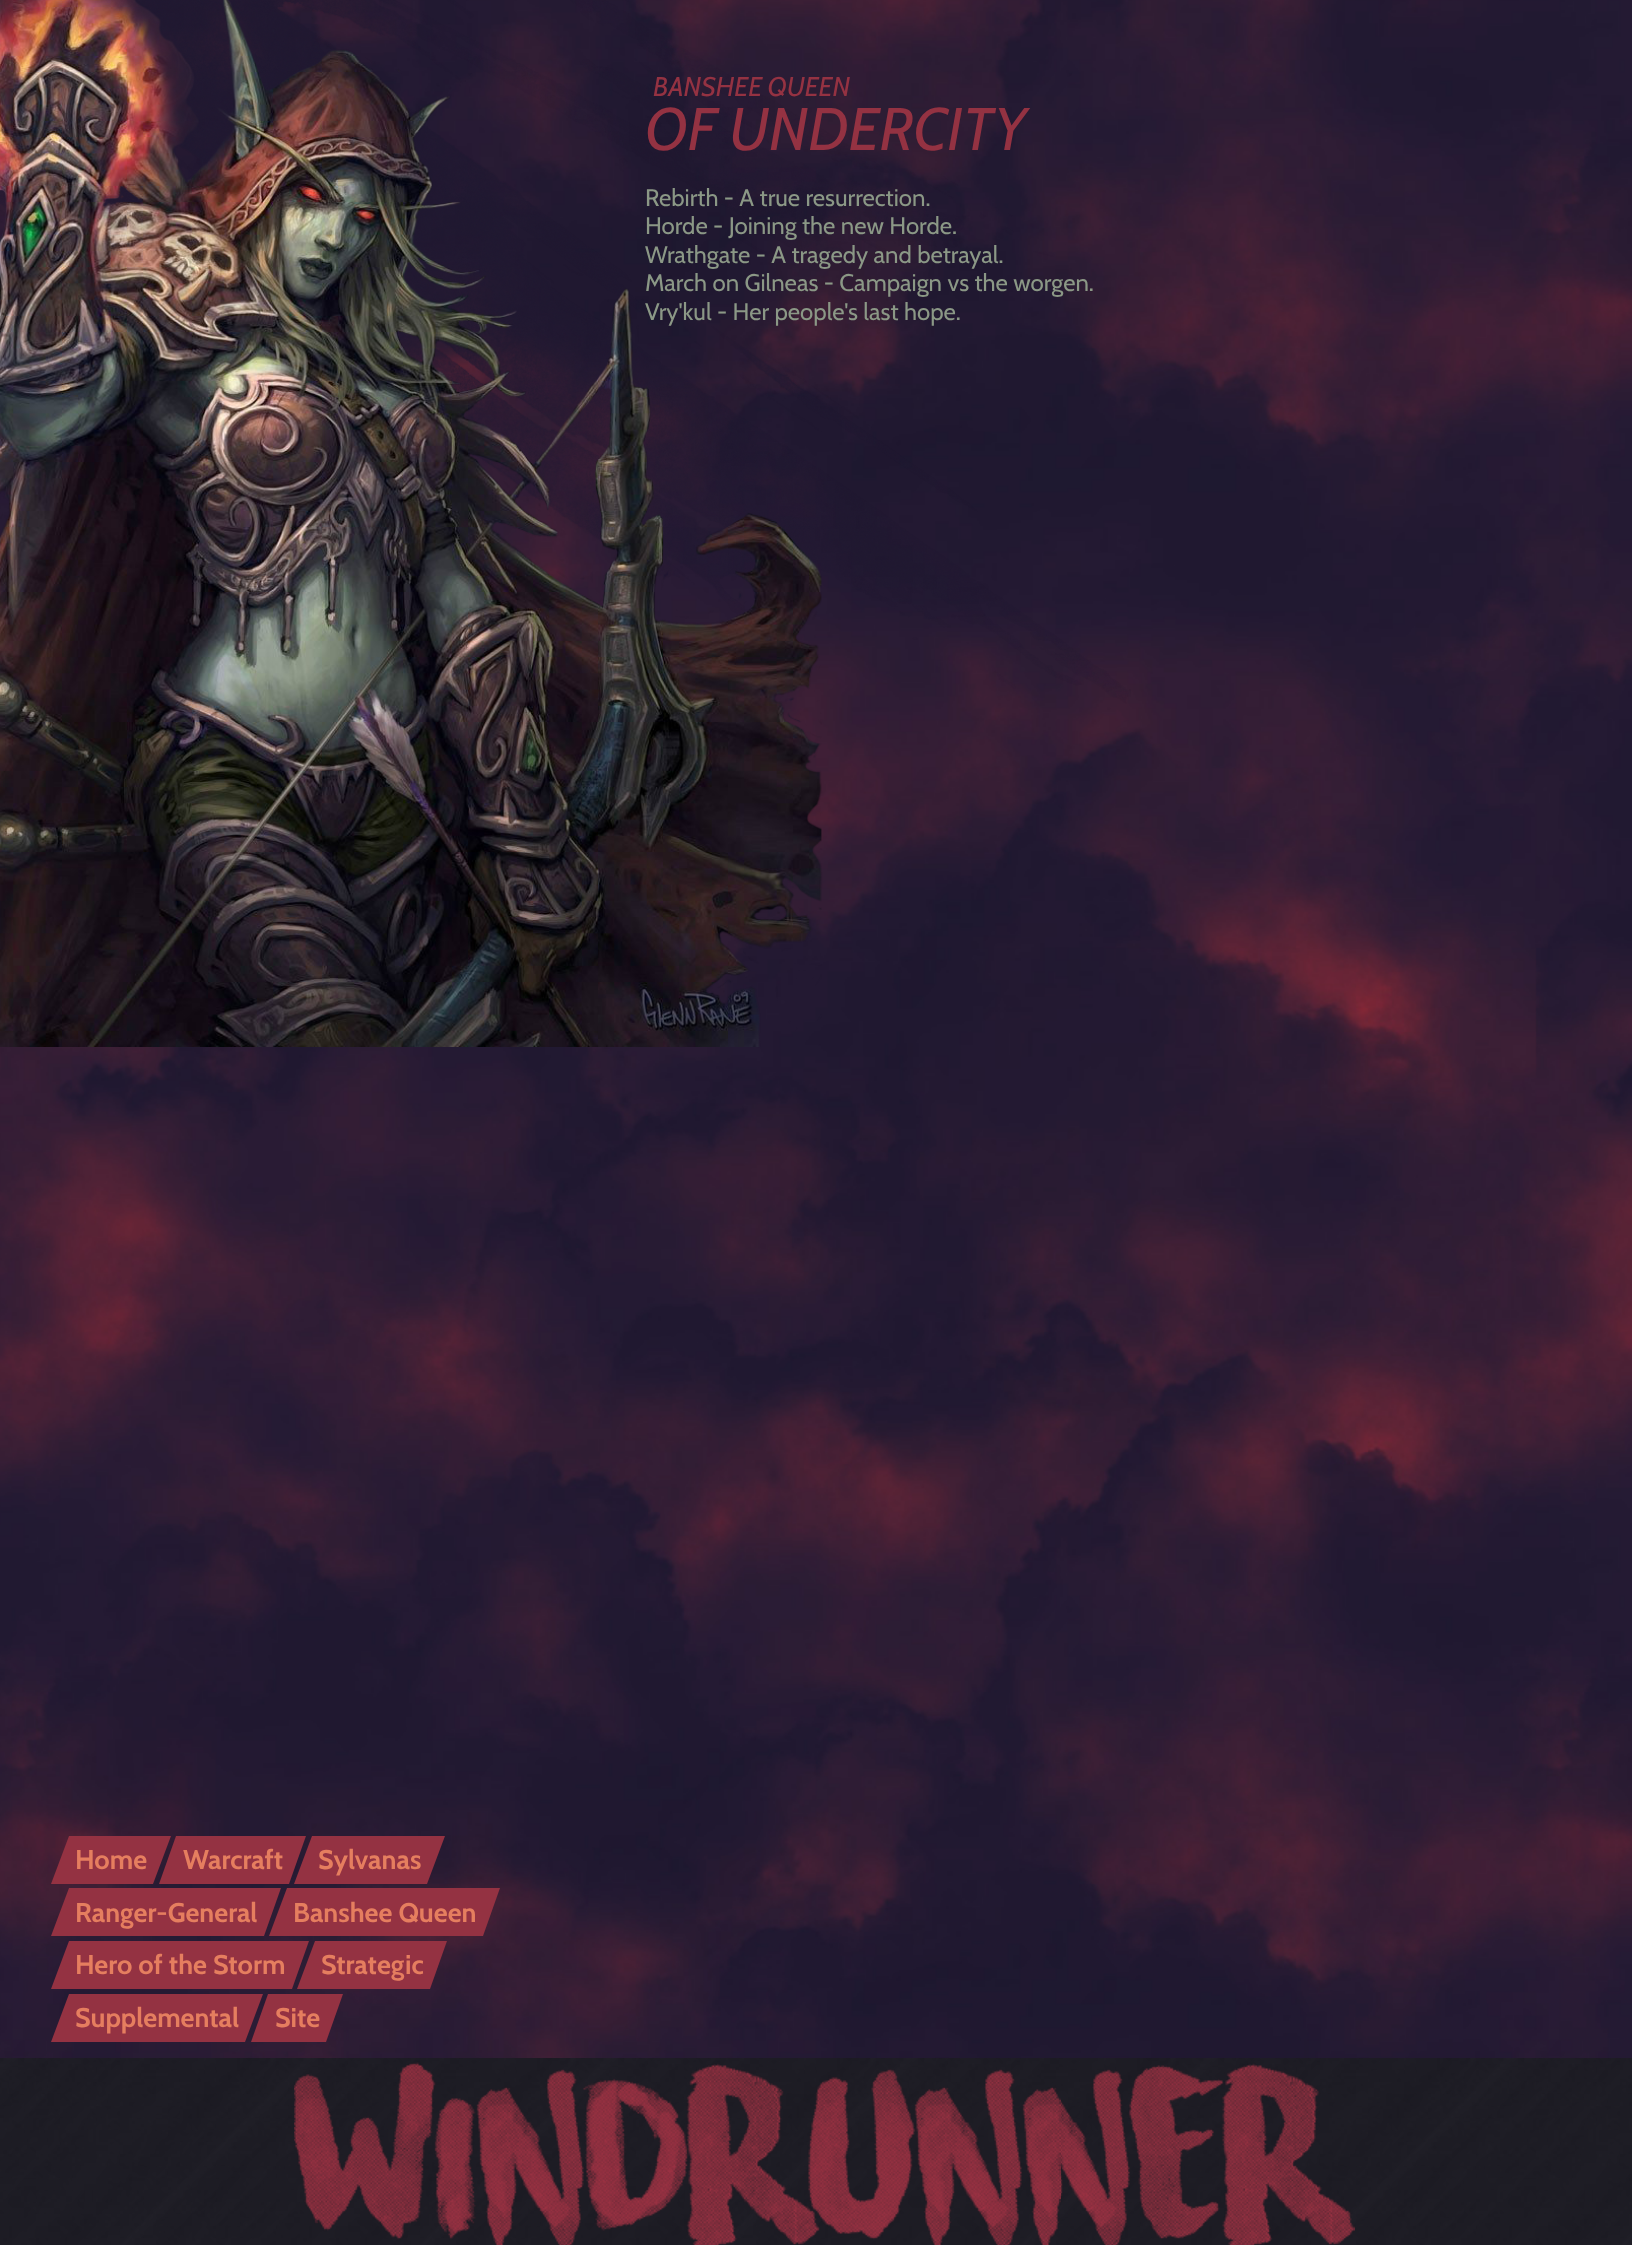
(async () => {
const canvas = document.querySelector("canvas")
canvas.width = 1632
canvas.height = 2245
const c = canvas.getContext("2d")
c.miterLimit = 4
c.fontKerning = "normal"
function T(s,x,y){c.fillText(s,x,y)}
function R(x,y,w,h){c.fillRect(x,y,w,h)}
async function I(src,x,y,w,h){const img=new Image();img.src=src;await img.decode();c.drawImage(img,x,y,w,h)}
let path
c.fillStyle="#fff"
R(0,0,1632,2245)
await I("1.png",0,0,1632,2058)
await I("2.png",0,0,1131,1047)
c.font="italic 27px Cabin"
c.fillStyle="#943242"
T("BANSHEE QUEEN",653,96)
c.font="italic 60px Cabin"
T("OF UNDERCITY",645,150)
c.font="24px Cabin"
c.fillStyle="#8b9886"
T("Rebirth - A true resurrection.",645,206)
T("Horde - Joining the new Horde.",645,234)
T("Wrathgate - A tragedy and betrayal.",645,263)
T("March on Gilneas - Campaign vs the worgen.",645,291)
T("Vry'kul - Her people's last hope.",645,320)
c.fillStyle="#943242"
path = new Path2D("M69 1836h102l-18 48h-102z")
c.fill(path)
c.font="bold 27px Cabin"
c.fillStyle="#e57e5f"
T("Home",75,1869)
c.fillStyle="#943242"
path = new Path2D("M176 1836h130l-17 48h-130z")
c.fill(path)
c.fillStyle="#e57e5f"
T("Warcraft",183,1869)
c.fillStyle="#943242"
path = new Path2D("M312 1836h133l-18 48h-133z")
c.fill(path)
c.fillStyle="#e57e5f"
T("Sylvanas",318,1869)
c.fillStyle="#943242"
path = new Path2D("M69 1888h212l-17 48h-213z")
c.fill(path)
c.fillStyle="#e57e5f"
T("Ranger-General",75,1922)
c.fillStyle="#943242"
path = new Path2D("M287 1888h213l-17 48h-214z")
c.fill(path)
c.fillStyle="#e57e5f"
T("Banshee Queen",293,1922)
c.fillStyle="#943242"
path = new Path2D("M69 1941h240l-17 48h-241z")
c.fill(path)
c.fillStyle="#e57e5f"
T("Hero of the Storm",75,1974)
c.fillStyle="#943242"
path = new Path2D("M315 1941h132l-17 48h-133z")
c.fill(path)
c.fillStyle="#e57e5f"
T("Strategic",321,1974)
c.fillStyle="#943242"
path = new Path2D("M69 1994h194l-18 48h-194z")
c.fill(path)
c.fillStyle="#e57e5f"
T("Supplemental",75,2027)
c.fillStyle="#943242"
path = new Path2D("M268 1994h75l-17 48h-75z")
c.fill(path)
c.fillStyle="#e57e5f"
T("Site",275,2027)
await I("3.png",0,2058,1632,187)
await I("4.png",294,2062,1061,183)
})()
